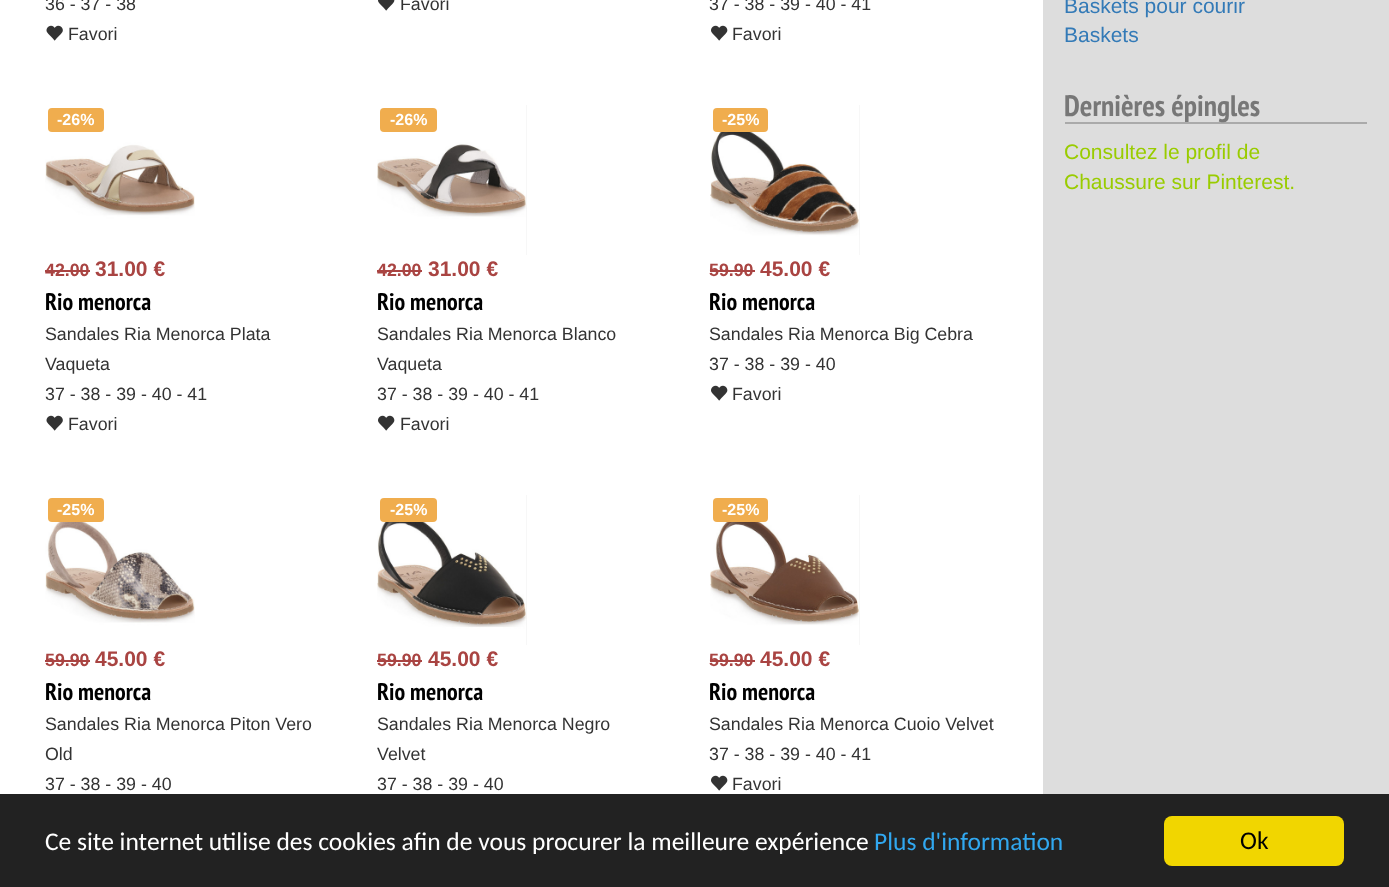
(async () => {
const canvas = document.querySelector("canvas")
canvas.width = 1389
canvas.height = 887
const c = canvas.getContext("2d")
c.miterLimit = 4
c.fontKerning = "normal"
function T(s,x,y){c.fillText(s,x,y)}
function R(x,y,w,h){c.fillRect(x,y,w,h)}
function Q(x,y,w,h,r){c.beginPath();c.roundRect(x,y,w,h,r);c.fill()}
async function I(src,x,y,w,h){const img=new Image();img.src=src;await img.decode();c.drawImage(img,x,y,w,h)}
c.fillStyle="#fff"
R(0,0,1389,887)
c.font="17.8px Liberation Sans"
c.fillStyle="#333"
T("36 - 37 - 38",45,10)
await I("1.png",46,25,17,16)
T("Favori",68,40)
await I("2.png",378,0,17,11)
T("Favori",400,10)
T("37 - 38 - 39 - 40 - 41",709,10)
await I("3.png",711,25,17,16)
T("Favori",732,40)
await I("4.png",45,105,150,150)
c.fillStyle="#f0ad4e"
Q(48,108,56,24,4)
c.font="bold 16px Liberation Sans"
c.fillStyle="#fff"
T("-26%",57,125)
c.font="bold 17.8px Liberation Sans"
c.fillStyle="#a94442"
T("42.00",45,276)
R(45,270,45,2)
c.font="bold 21px Liberation Sans"
T("31.00 €",95,276)
c.font="bold 24px PT Sans Narrow"
c.fillStyle="#000"
T("Rio menorca",45,310)
c.font="17.8px Liberation Sans"
c.fillStyle="#333"
T("Sandales Ria Menorca Plata",45,340)
T("Vaqueta",45,370)
T("37 - 38 - 39 - 40 - 41",45,400)
await I("1.png",46,415,17,16)
T("Favori",68,430)
c.fillStyle="#eee"
R(526,105,1,150)
await I("5.png",377,105,150,150)
c.fillStyle="#f0ad4e"
Q(380,108,57,24,4)
c.font="bold 16px Liberation Sans"
c.fillStyle="#fff"
T("-26%",390,125)
c.font="bold 17.8px Liberation Sans"
c.fillStyle="#a94442"
T("42.00",377,276)
R(377,270,45,2)
c.font="bold 21px Liberation Sans"
T("31.00 €",428,276)
c.font="bold 24px PT Sans Narrow"
c.fillStyle="#000"
T("Rio menorca",377,310)
c.font="17.8px Liberation Sans"
c.fillStyle="#333"
T("Sandales Ria Menorca Blanco",377,340)
T("Vaqueta",377,370)
T("37 - 38 - 39 - 40 - 41",377,400)
await I("3.png",378,415,17,16)
T("Favori",400,430)
c.fillStyle="#eee"
R(859,105,1,150)
await I("6.png",710,105,150,150)
c.fillStyle="#f0ad4e"
Q(713,108,55,24,4)
c.font="bold 16px Liberation Sans"
c.fillStyle="#fff"
T("-25%",722,125)
c.font="bold 17.8px Liberation Sans"
c.fillStyle="#a94442"
T("59.90",709,276)
R(710,270,45,2)
c.font="bold 21px Liberation Sans"
T("45.00 €",760,276)
c.font="bold 24px PT Sans Narrow"
c.fillStyle="#000"
T("Rio menorca",709,310)
c.font="17.8px Liberation Sans"
c.fillStyle="#333"
T("Sandales Ria Menorca Big Cebra",709,340)
T("37 - 38 - 39 - 40",709,370)
await I("3.png",711,385,17,16)
T("Favori",732,400)
await I("7.png",45,495,150,150)
c.fillStyle="#f0ad4e"
Q(48,498,56,24,4)
c.font="bold 16px Liberation Sans"
c.fillStyle="#fff"
T("-25%",57,515)
c.font="bold 17.8px Liberation Sans"
c.fillStyle="#a94442"
T("59.90",45,666)
R(45,660,45,2)
c.font="bold 21px Liberation Sans"
T("45.00 €",95,666)
c.font="bold 24px PT Sans Narrow"
c.fillStyle="#000"
T("Rio menorca",45,700)
c.font="17.8px Liberation Sans"
c.fillStyle="#333"
T("Sandales Ria Menorca Piton Vero",45,730)
T("Old",45,760)
T("37 - 38 - 39 - 40",45,790)
c.fillStyle="#eee"
R(526,495,1,150)
await I("8.png",377,495,150,150)
c.fillStyle="#f0ad4e"
Q(380,498,57,24,4)
c.font="bold 16px Liberation Sans"
c.fillStyle="#fff"
T("-25%",390,515)
c.font="bold 17.8px Liberation Sans"
c.fillStyle="#a94442"
T("59.90",377,666)
R(377,660,45,2)
c.font="bold 21px Liberation Sans"
T("45.00 €",428,666)
c.font="bold 24px PT Sans Narrow"
c.fillStyle="#000"
T("Rio menorca",377,700)
c.font="17.8px Liberation Sans"
c.fillStyle="#333"
T("Sandales Ria Menorca Negro",377,730)
T("Velvet",377,760)
T("37 - 38 - 39 - 40",377,790)
c.fillStyle="#eee"
R(859,495,1,150)
await I("9.png",710,495,150,150)
c.fillStyle="#f0ad4e"
Q(713,498,55,24,4)
c.font="bold 16px Liberation Sans"
c.fillStyle="#fff"
T("-25%",722,515)
c.font="bold 17.8px Liberation Sans"
c.fillStyle="#a94442"
T("59.90",709,666)
R(710,660,45,2)
c.font="bold 21px Liberation Sans"
T("45.00 €",760,666)
c.font="bold 24px PT Sans Narrow"
c.fillStyle="#000"
T("Rio menorca",709,700)
c.font="17.8px Liberation Sans"
c.fillStyle="#333"
T("Sandales Ria Menorca Cuoio Velvet",709,730)
T("37 - 38 - 39 - 40 - 41",709,760)
await I("3.png",711,775,17,16)
T("Favori",732,790)
c.fillStyle="#ddd"
R(1043,0,346,794)
c.font="21px Liberation Sans"
c.fillStyle="#337ab7"
T("Baskets pour courir",1064,13)
T("Baskets",1064,42)
c.fillStyle="#aaa"
R(1065,122,302,2)
c.font="bold 29.5px PT Sans Narrow"
c.fillStyle="#777"
T("Dernières épingles",1064,116)
c.font="21px Liberation Sans"
c.fillStyle="#9c0"
T("Consultez le profil de",1064,159)
T("Chaussure sur Pinterest.",1064,189)
c.fillStyle="#222"
R(0,794,1389,93)
c.font="25.5px Carlito"
c.fillStyle="#fff"
T("Ce site internet utilise des cookies afin de vous procurer la meilleure expérience",45,850)
c.fillStyle="#31a8f0"
T("Plus d'information",874,850)
c.fillStyle="#f1d600"
Q(1164,816,180,50,8)
c.fillStyle="#000"
T("Ok",1240,849)
})()
